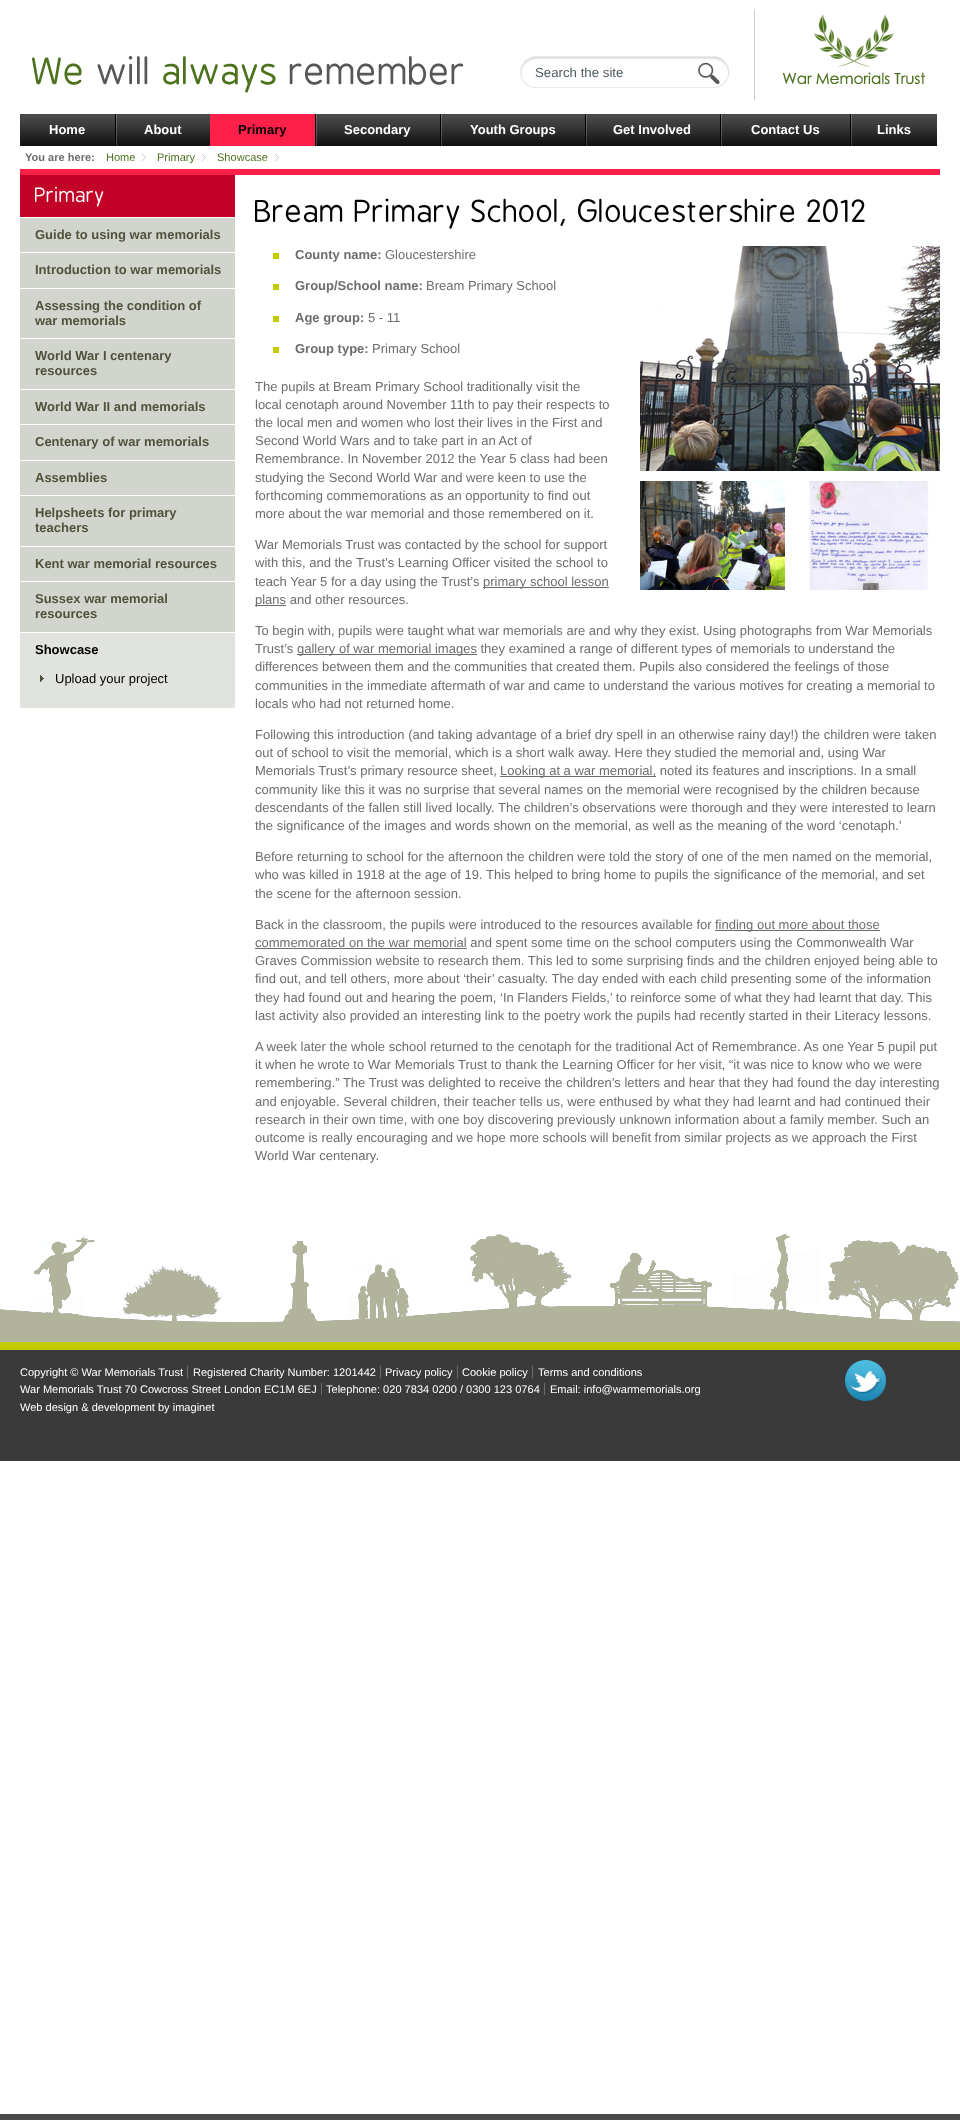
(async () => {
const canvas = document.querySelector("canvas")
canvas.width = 960
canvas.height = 2120
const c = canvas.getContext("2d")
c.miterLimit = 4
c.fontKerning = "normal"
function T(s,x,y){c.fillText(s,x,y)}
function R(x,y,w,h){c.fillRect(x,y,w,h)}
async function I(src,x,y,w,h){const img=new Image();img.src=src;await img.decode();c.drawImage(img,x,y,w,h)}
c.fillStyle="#fff"
R(0,0,960,2120)
await I("1.png",32,56,432,37)
await I("2.png",520,56,210,32)
c.font="13.25px Liberation Sans"
c.fillStyle="#4e595e"
T("Search the site",535,77)
await I("3.png",698,62,22,22)
c.fillStyle="#ccc"
R(754,10,1,90)
await I("4.png",783,15,142,69)
await I("5.png",20,114,95,32)
c.font="bold 13px Liberation Sans"
c.fillStyle="#fff"
T("Home",49,134)
await I("6.png",117,114,93,32)
await I("7.png",115,114,2,32)
T("About",144,134)
c.fillStyle="#ff204a"
R(210,114,105,32)
c.fillStyle="#000"
T("Primary",238,134)
await I("8.png",317,114,123,32)
await I("7.png",315,114,2,32)
c.fillStyle="#fff"
T("Secondary",344,134)
await I("9.png",442,114,143,32)
await I("7.png",440,114,2,32)
T("Youth Groups",470,134)
await I("10.png",587,114,133,32)
await I("7.png",585,114,2,32)
T("Get Involved",613,134)
await I("11.png",722,114,128,32)
await I("7.png",720,114,2,32)
T("Contact Us",751,134)
await I("12.png",852,114,85,32)
await I("7.png",850,114,2,32)
T("Links",877,134)
c.fillStyle="#ff204a"
R(20,169,920,6)
c.font="bold 11.05px Liberation Sans"
c.fillStyle="#6d6d6d"
T("You are here:",25,161)
c.font="11.05px Liberation Sans"
c.fillStyle="#4c721d"
T("Home",106,161)
await I("13.png",142,154,4,7)
T("Primary",157,161)
await I("13.png",202,154,4,7)
T("Showcase",217,161)
await I("13.png",275,154,4,7)
c.fillStyle="#d2d5cd"
R(20,218,215,414)
c.fillStyle="#c20226"
R(20,175,215,42)
c.font="19.5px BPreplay"
c.fillStyle="#fff"
T("Primary",35,202)
c.font="bold 13px Liberation Sans"
c.fillStyle="#4f523c"
T("Guide to using war memorials",35,239)
c.fillStyle="#fff"
R(20,252,215,1)
c.fillStyle="#4f523c"
T("Introduction to war memorials",35,274)
c.fillStyle="#fff"
R(20,288,215,1)
c.fillStyle="#4f523c"
T("Assessing the condition of",35,310)
T("war memorials",35,325)
c.fillStyle="#fff"
R(20,338,215,1)
c.fillStyle="#4f523c"
T("World War I centenary",35,360)
T("resources",35,375)
c.fillStyle="#fff"
R(20,389,215,1)
c.fillStyle="#4f523c"
T("World War II and memorials",35,411)
c.fillStyle="#fff"
R(20,424,215,1)
c.fillStyle="#4f523c"
T("Centenary of war memorials",35,446)
c.fillStyle="#fff"
R(20,460,215,1)
c.fillStyle="#4f523c"
T("Assemblies",35,482)
c.fillStyle="#fff"
R(20,495,215,1)
c.fillStyle="#4f523c"
T("Helpsheets for primary",35,517)
T("teachers",35,532)
c.fillStyle="#fff"
R(20,546,215,1)
c.fillStyle="#4f523c"
T("Kent war memorial resources",35,568)
c.fillStyle="#fff"
R(20,581,215,1)
c.fillStyle="#4f523c"
T("Sussex war memorial",35,603)
T("resources",35,618)
c.fillStyle="#e1e3de"
R(20,633,215,75)
c.fillStyle="#000"
T("Showcase",35,654)
await I("14.png",40,675,4,7)
c.font="13px Liberation Sans"
T("Upload your project",55,683)
c.font="29.9px BPreplay"
T("Bream Primary School, Gloucestershire 2012",255,222)
await I("15.png",640,246,300,225)
await I("16.png",640,481,145,109)
await I("17.png",807,481,122,109)
c.fillStyle="#c4cb00"
R(273,253,6,6)
c.font="bold 13px Liberation Sans"
c.fillStyle="#6d6d6d"
T("County name:",295,259)
c.font="13px Liberation Sans"
T("Gloucestershire",385,259)
c.fillStyle="#c4cb00"
R(273,284,6,6)
c.font="bold 13px Liberation Sans"
c.fillStyle="#6d6d6d"
T("Group/School name:",295,290)
c.font="13px Liberation Sans"
T("Bream Primary School",426,290)
c.fillStyle="#c4cb00"
R(273,316,6,6)
c.font="bold 13px Liberation Sans"
c.fillStyle="#6d6d6d"
T("Age group:",295,322)
c.font="13px Liberation Sans"
T("5 - 11",368,322)
c.fillStyle="#c4cb00"
R(273,347,6,6)
c.font="bold 13px Liberation Sans"
c.fillStyle="#6d6d6d"
T("Group type:",295,353)
c.font="13px Liberation Sans"
T("Primary School",372,353)
T("The pupils at Bream Primary School traditionally visit the",255,391)
T("local cenotaph around November 11th to pay their respects to",255,409)
T("the local men and women who lost their lives in the First and",255,427)
T("Second World Wars and to take part in an Act of",255,445)
T("Remembrance. In November 2012 the Year 5 class had been",255,463)
T("studying the Second World War and were keen to use the",255,482)
T("forthcoming commemorations as an opportunity to find out",255,500)
T("more about the war memorial and those remembered on it.",255,518)
T("War Memorials Trust was contacted by the school for support",255,549)
T("with this, and the Trust’s Learning Officer visited the school to",255,567)
T("teach Year 5 for a day using the Trust’s",255,586)
R(483,587,126,1)
T("primary school lesson",483,586)
R(255,605,31,1)
T("plans and other resources.",255,604)
T("To begin with, pupils were taught what war memorials are and why they exist. Using photographs from War Memorials",255,635)
T("Trust’s",255,653)
R(297,654,180,1)
T("gallery of war memorial images they examined a range of different types of memorials to understand the",297,653)
T("differences between them and the communities that created them. Pupils also considered the feelings of those",255,671)
T("communities in the immediate aftermath of war and came to understand the various motives for creating a memorial to",255,690)
T("locals who had not returned home.",255,708)
T("Following this introduction (and taking advantage of a brief dry spell in an otherwise rainy day!) the children were taken",255,739)
T("out of school to visit the memorial, which is a short walk away. Here they studied the memorial and, using War",255,757)
T("Memorials Trust’s primary resource sheet,",255,775)
R(500,776,156,1)
T("Looking at a war memorial, noted its features and inscriptions. In a small",500,775)
T("community like this it was no surprise that several names on the memorial were recognised by the children because",255,794)
T("descendants of the fallen still lived locally. The children’s observations were thorough and they were interested to learn",255,812)
T("the significance of the images and words shown on the memorial, as well as the meaning of the word ‘cenotaph.’",255,830)
T("Before returning to school for the afternoon the children were told the story of one of the men named on the memorial,",255,861)
T("who was killed in 1918 at the age of 19. This helped to bring home to pupils the significance of the memorial, and set",255,879)
T("the scene for the afternoon session.",255,898)
T("Back in the classroom, the pupils were introduced to the resources available for",255,929)
R(715,930,165,1)
T("finding out more about those",715,929)
R(255,948,212,1)
T("commemorated on the war memorial and spent some time on the school computers using the Commonwealth War",255,947)
T("Graves Commission website to research them. This led to some surprising finds and the children enjoyed being able to",255,965)
T("find out, and tell others, more about ‘their’ casualty. The day ended with each child presenting some of the information",255,983)
T("they had found out and hearing the poem, ‘In Flanders Fields,’ to reinforce some of what they had learnt that day. This",255,1002)
T("last activity also provided an interesting link to the poetry work the pupils had recently started in their Literacy lessons.",255,1020)
T("A week later the whole school returned to the cenotaph for the traditional Act of Remembrance. As one Year 5 pupil put",255,1051)
T("it when he wrote to War Memorials Trust to thank the Learning Officer for her visit, “it was nice to know who we were",255,1069)
T("remembering.” The Trust was delighted to receive the children’s letters and hear that they had found the day interesting",255,1087)
T("and enjoyable. Several children, their teacher tells us, were enthused by what they had learnt and had continued their",255,1106)
T("research in their own time, with one boy discovering previously unknown information about a family member. Such an",255,1124)
T("outcome is really encouraging and we hope more schools will benefit from similar projects as we approach the First",255,1142)
T("World War centenary.",255,1160)
c.fillStyle="#3a3a3a"
R(0,1350,960,111)
await I("18.png",0,1230,960,120)
await I("19.png",34,1233,925,89)
c.font="11.05px Liberation Sans"
c.fillStyle="#fff"
T("Copyright © War Memorials Trust",20,1376)
T("Registered Charity Number: 1201442",193,1376)
c.fillStyle="#6c6c6c"
R(187,1366,1,12)
c.fillStyle="#fff"
T("Privacy policy",385,1376)
c.fillStyle="#6c6c6c"
R(380,1366,1,12)
c.fillStyle="#fff"
T("Cookie policy",462,1376)
c.fillStyle="#6c6c6c"
R(457,1366,1,12)
c.fillStyle="#fff"
T("Terms and conditions",538,1376)
c.fillStyle="#6c6c6c"
R(532,1366,1,12)
c.fillStyle="#fff"
T("War Memorials Trust 70 Cowcross Street London EC1M 6EJ",20,1393)
T("Telephone: 020 7834 0200 / 0300 123 0764",326,1393)
c.fillStyle="#6c6c6c"
R(321,1383,1,12)
c.fillStyle="#fff"
T("Email: info@warmemorials.org",550,1393)
c.fillStyle="#6c6c6c"
R(544,1383,1,12)
c.fillStyle="#fff"
T("Web design & development by imaginet",20,1411)
await I("20.png",845,1360,41,41)
c.fillStyle="#4b4b4b"
R(0,2114,960,6)
})()
